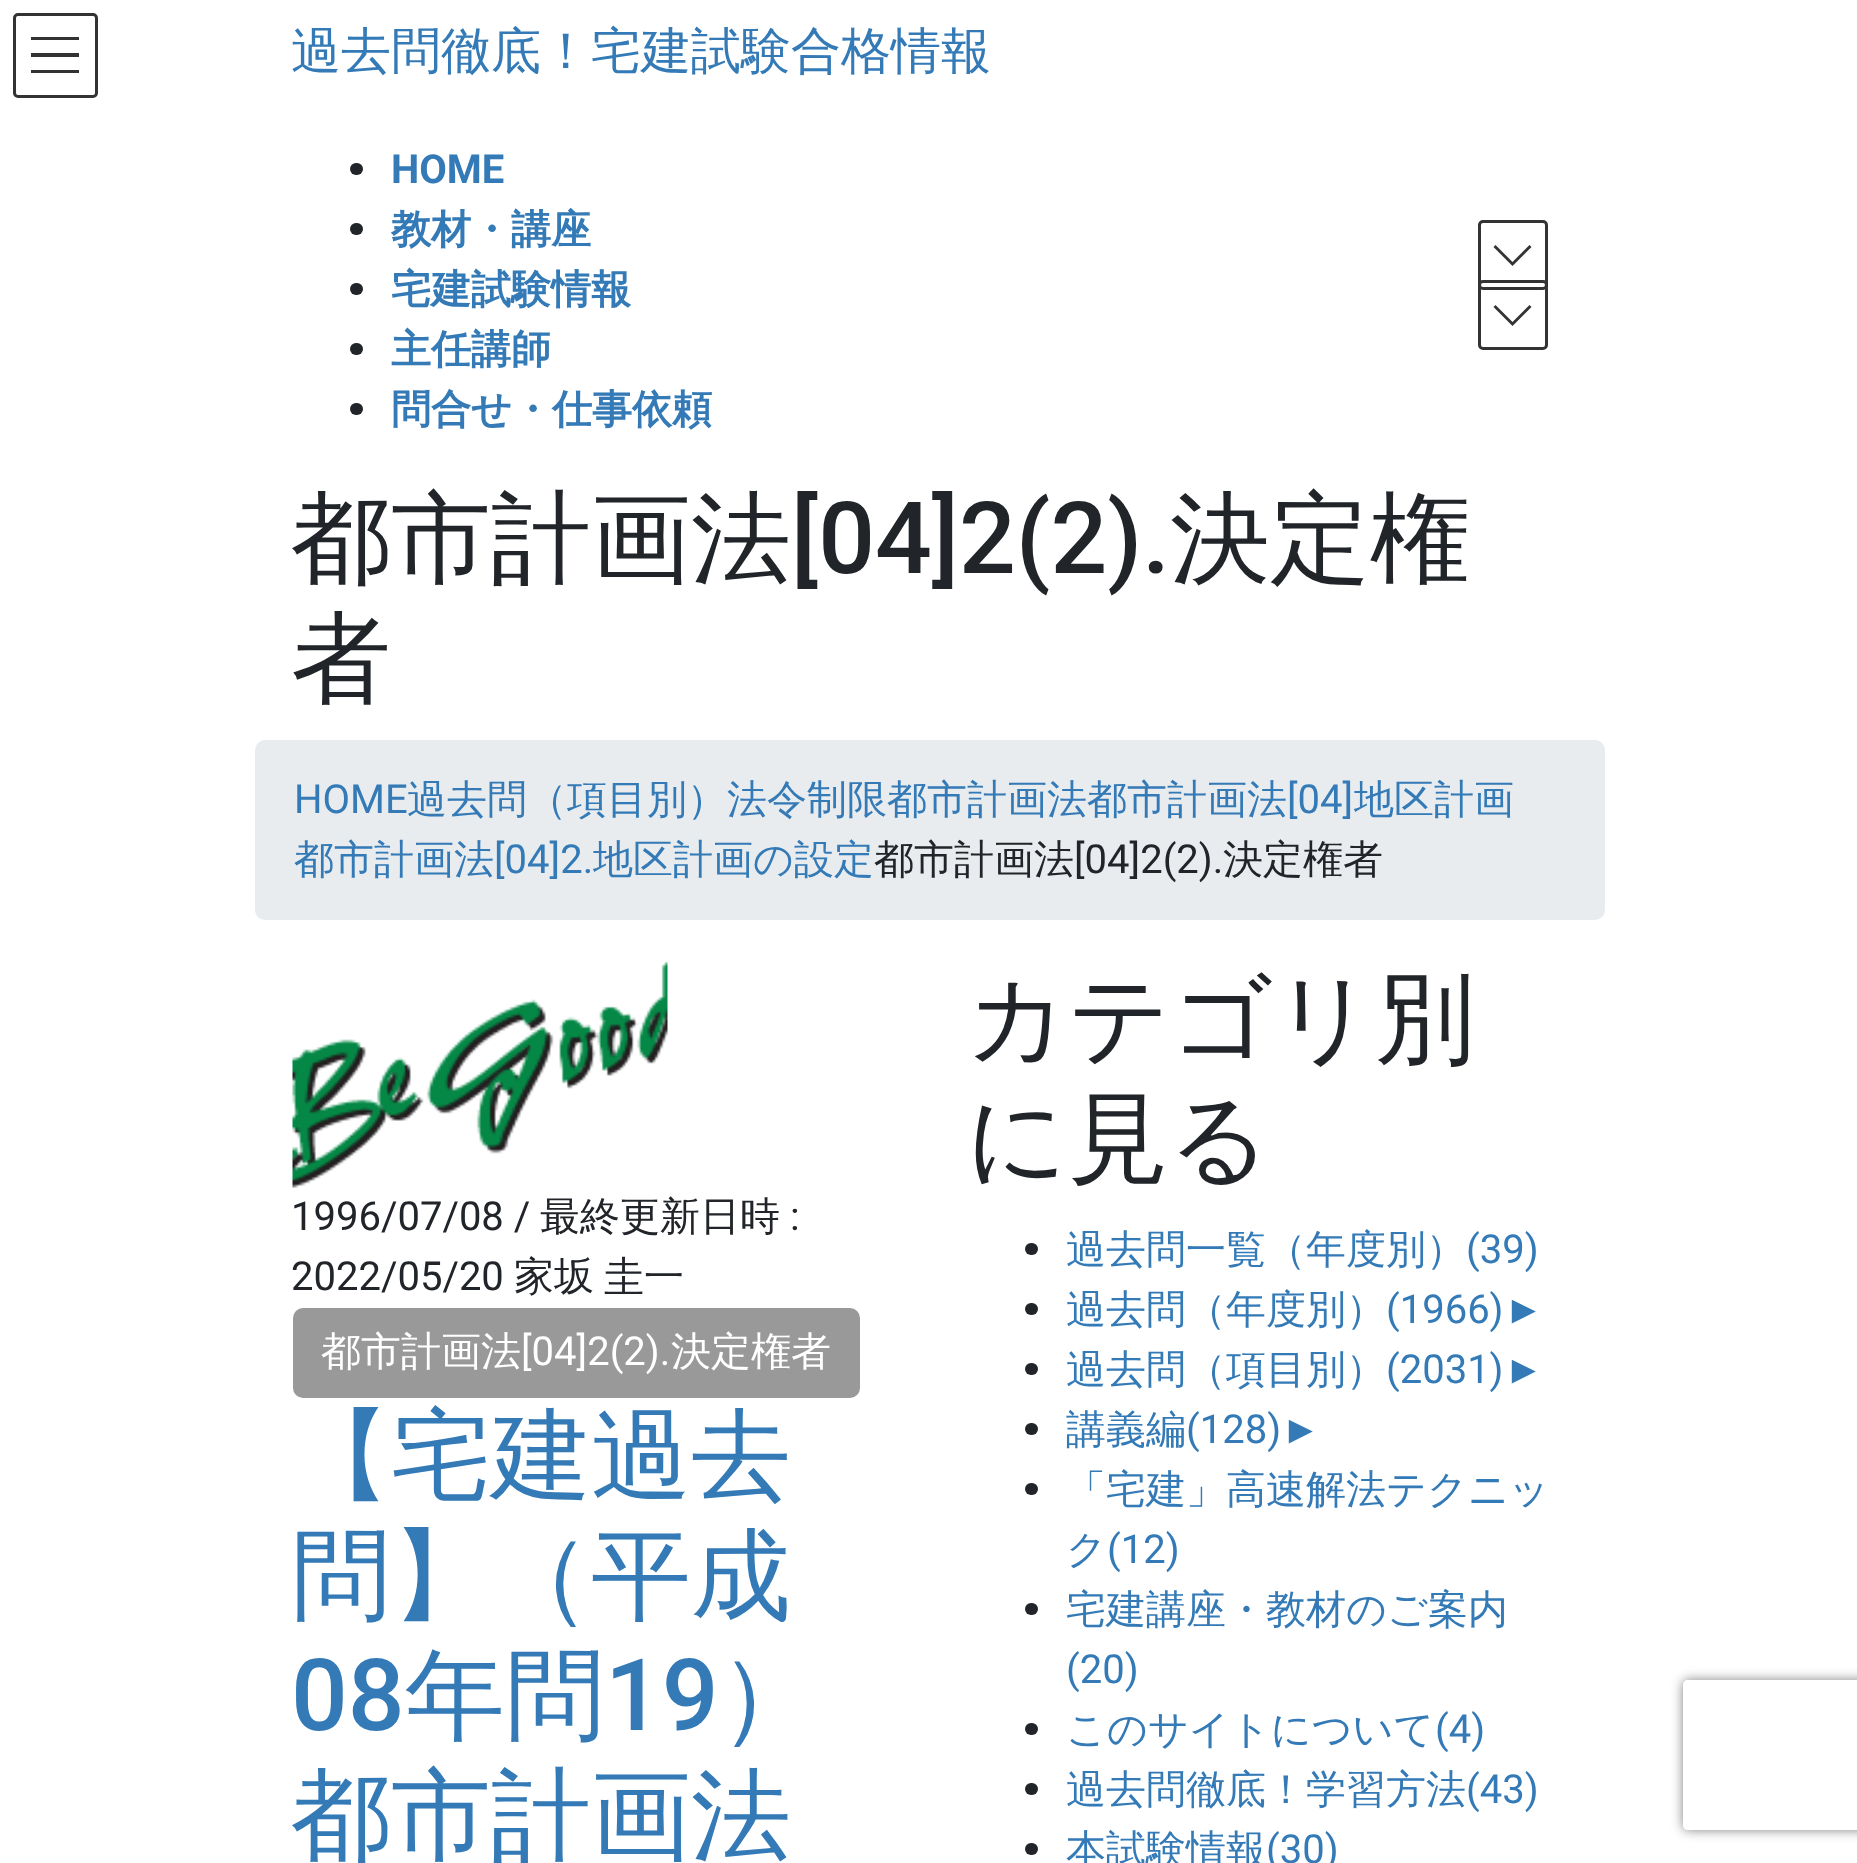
(async () => {
const canvas = document.querySelector("canvas")
canvas.width = 1857
canvas.height = 1863
const c = canvas.getContext("2d")
c.miterLimit = 4
c.fontKerning = "normal"
function T(s,x,y){c.fillText(s,x,y)}
function R(x,y,w,h){c.fillRect(x,y,w,h)}
function Q(x,y,w,h,r){c.beginPath();c.roundRect(x,y,w,h,r);c.fill()}
async function I(src,x,y,w,h){const img=new Image();img.src=src;await img.decode();c.drawImage(img,x,y,w,h)}
let path
c.fillStyle="#fff"
R(0,0,1857,1863)
c.fillStyle="#333"
R(31,37,48,3)
R(31,53,48,4)
R(31,70,48,3)
c.beginPath()
c.roundRect(14.5,14.5,82,82,3.5)
c.strokeStyle="#333"
c.lineWidth=3
c.stroke()
c.font="500 50px WenQuanYi Zen Hei"
c.fillStyle="#337ab7"
T("過去問徹底！宅建試験合格情報",291,68)
c.fillStyle="#212529"
Q(350,163,13,12,6)
c.font="bold 40px Roboto"
c.fillStyle="#337ab7"
T("HOME",391,183)
c.fillStyle="#212529"
Q(350,223,13,12,6)
c.font="bold 40px WenQuanYi Zen Hei"
c.fillStyle="#337ab7"
T("教材・講座",391,243)
c.fillStyle="#333"
path = new Path2D("M1512.5 266l-19-19l2-2l17 17l17-17l2 2z")
c.fill(path)
c.beginPath()
c.roundRect(1479.5,221.5,67,67,3.5)
c.stroke()
c.fillStyle="#212529"
Q(350,283,13,12,6)
c.fillStyle="#337ab7"
T("宅建試験情報",391,303)
c.fillStyle="#333"
path = new Path2D("M1512.5 326l-19-19l2-2l17 17l17-17l2 2z")
c.fill(path)
c.beginPath()
c.roundRect(1479.5,281.5,67,67,3.5)
c.stroke()
c.fillStyle="#212529"
Q(350,343,13,12,6)
c.fillStyle="#337ab7"
T("主任講師",391,363)
c.fillStyle="#212529"
Q(350,403,13,12,6)
c.fillStyle="#337ab7"
T("問合せ・仕事依頼",391,423)
c.font="500 100px WenQuanYi Zen Hei"
c.fillStyle="#212529"
T("都市計画法",291,573)
c.font="500 100px Roboto"
T("[04]2(2).",791,573)
c.font="500 100px WenQuanYi Zen Hei"
T("決定権",1170,573)
T("者",291,693)
c.fillStyle="#e9ecef"
Q(255,740,1350,180,10)
c.font="40px Roboto"
c.fillStyle="#337ab7"
T("HOME",294,813)
c.font="500 40px WenQuanYi Zen Hei"
T("過去問（項目別）法令制限都市計画法都市計画法",407,813)
c.font="40px Roboto"
T("[04]",1287,813)
c.font="500 40px WenQuanYi Zen Hei"
T("地区計画",1354,813)
T("都市計画法",294,873)
c.font="40px Roboto"
T("[04]2.",494,873)
c.font="500 40px WenQuanYi Zen Hei"
T("地区計画の設定",593,873)
c.fillStyle="#212529"
T("都市計画法",874,873)
c.font="40px Roboto"
T("[04]2(2).",1074,873)
c.font="500 40px WenQuanYi Zen Hei"
T("決定権者",1223,873)
await I("1.png",292,961,376,227)
c.font="40px Roboto"
T("1996/07/08 /",291,1230)
c.font="500 40px WenQuanYi Zen Hei"
T("最終更新日時",540,1230)
c.font="40px Roboto"
T(":",790,1230)
T("2022/05/20",291,1290)
c.wordSpacing="-2px"
c.font="500 40px WenQuanYi Zen Hei"
T("家坂 圭一",514,1290)
c.fillStyle="#999"
Q(293,1308,567,90,10)
c.wordSpacing="0px"
c.fillStyle="#fff"
T("都市計画法",321,1365)
c.font="40px Roboto"
T("[04]2(2).",521,1365)
c.font="500 40px WenQuanYi Zen Hei"
T("決定権者",671,1365)
c.font="500 100px WenQuanYi Zen Hei"
c.fillStyle="#337ab7"
T("【宅建過去",291,1490)
T("問】（平成",291,1610)
c.font="500 100px Roboto"
T("08",291,1730)
c.font="500 100px WenQuanYi Zen Hei"
T("年問",405,1730)
c.font="500 100px Roboto"
T("19",605,1730)
c.font="500 100px WenQuanYi Zen Hei"
T("）",719,1730)
T("都市計画法",291,1850)
c.fillStyle="#212529"
T("カテゴリ別",966,1053)
T("に見る",966,1173)
Q(1025,1243,13,12,6)
c.font="500 40px WenQuanYi Zen Hei"
c.fillStyle="#337ab7"
T("過去問一覧（年度別）",1066,1263)
c.font="40px Roboto"
T("(39)",1466,1263)
c.fillStyle="#212529"
Q(1025,1303,13,12,6)
c.font="500 40px WenQuanYi Zen Hei"
c.fillStyle="#337ab7"
T("過去問（年度別）",1066,1323)
c.font="40px Roboto"
T("(1966)",1386,1323)
c.font="40px Liberation Sans"
T("►",1504,1323)
c.fillStyle="#212529"
Q(1025,1363,13,12,6)
c.font="500 40px WenQuanYi Zen Hei"
c.fillStyle="#337ab7"
T("過去問（項目別）",1066,1383)
c.font="40px Roboto"
T("(2031)",1386,1383)
c.font="40px Liberation Sans"
T("►",1504,1383)
c.fillStyle="#212529"
Q(1025,1423,13,12,6)
c.font="500 40px WenQuanYi Zen Hei"
c.fillStyle="#337ab7"
T("講義編",1066,1443)
c.font="40px Roboto"
T("(128)",1186,1443)
c.font="40px Liberation Sans"
T("►",1281,1443)
c.fillStyle="#212529"
Q(1025,1483,13,12,6)
c.font="500 40px WenQuanYi Zen Hei"
c.fillStyle="#337ab7"
T("「宅建」高速解法テクニッ",1066,1503)
T("ク",1066,1563)
c.font="40px Roboto"
T("(12)",1107,1563)
c.fillStyle="#212529"
Q(1025,1603,13,12,6)
c.font="500 40px WenQuanYi Zen Hei"
c.fillStyle="#337ab7"
T("宅建講座・教材のご案内",1066,1623)
c.font="40px Roboto"
T("(20)",1066,1683)
c.fillStyle="#212529"
Q(1025,1723,13,12,6)
c.font="500 40px WenQuanYi Zen Hei"
c.fillStyle="#337ab7"
T("このサイトについて",1066,1743)
c.font="40px Roboto"
T("(4)",1435,1743)
c.fillStyle="#212529"
Q(1025,1783,13,12,6)
c.font="500 40px WenQuanYi Zen Hei"
c.fillStyle="#337ab7"
T("過去問徹底！学習方法",1066,1803)
c.font="40px Roboto"
T("(43)",1466,1803)
c.fillStyle="#212529"
Q(1025,1843,13,12,6)
c.font="500 40px WenQuanYi Zen Hei"
c.fillStyle="#337ab7"
T("本試験情報",1066,1863)
c.font="40px Roboto"
T("(30)",1266,1863)
c.save()
path = new Path2D("M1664 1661h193v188h-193zm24 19h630c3 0 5 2 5 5v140c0 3-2 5-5 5h-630c-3 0-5-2-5-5v-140c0-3 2-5 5-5z")
c.clip(path,"evenodd")
c.fillStyle="#808080"
c.filter="blur(6px)"
c.beginPath()
c.roundRect(1683,1680,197,150,5)
c.fill()
c.filter="none"
c.restore()
})()
